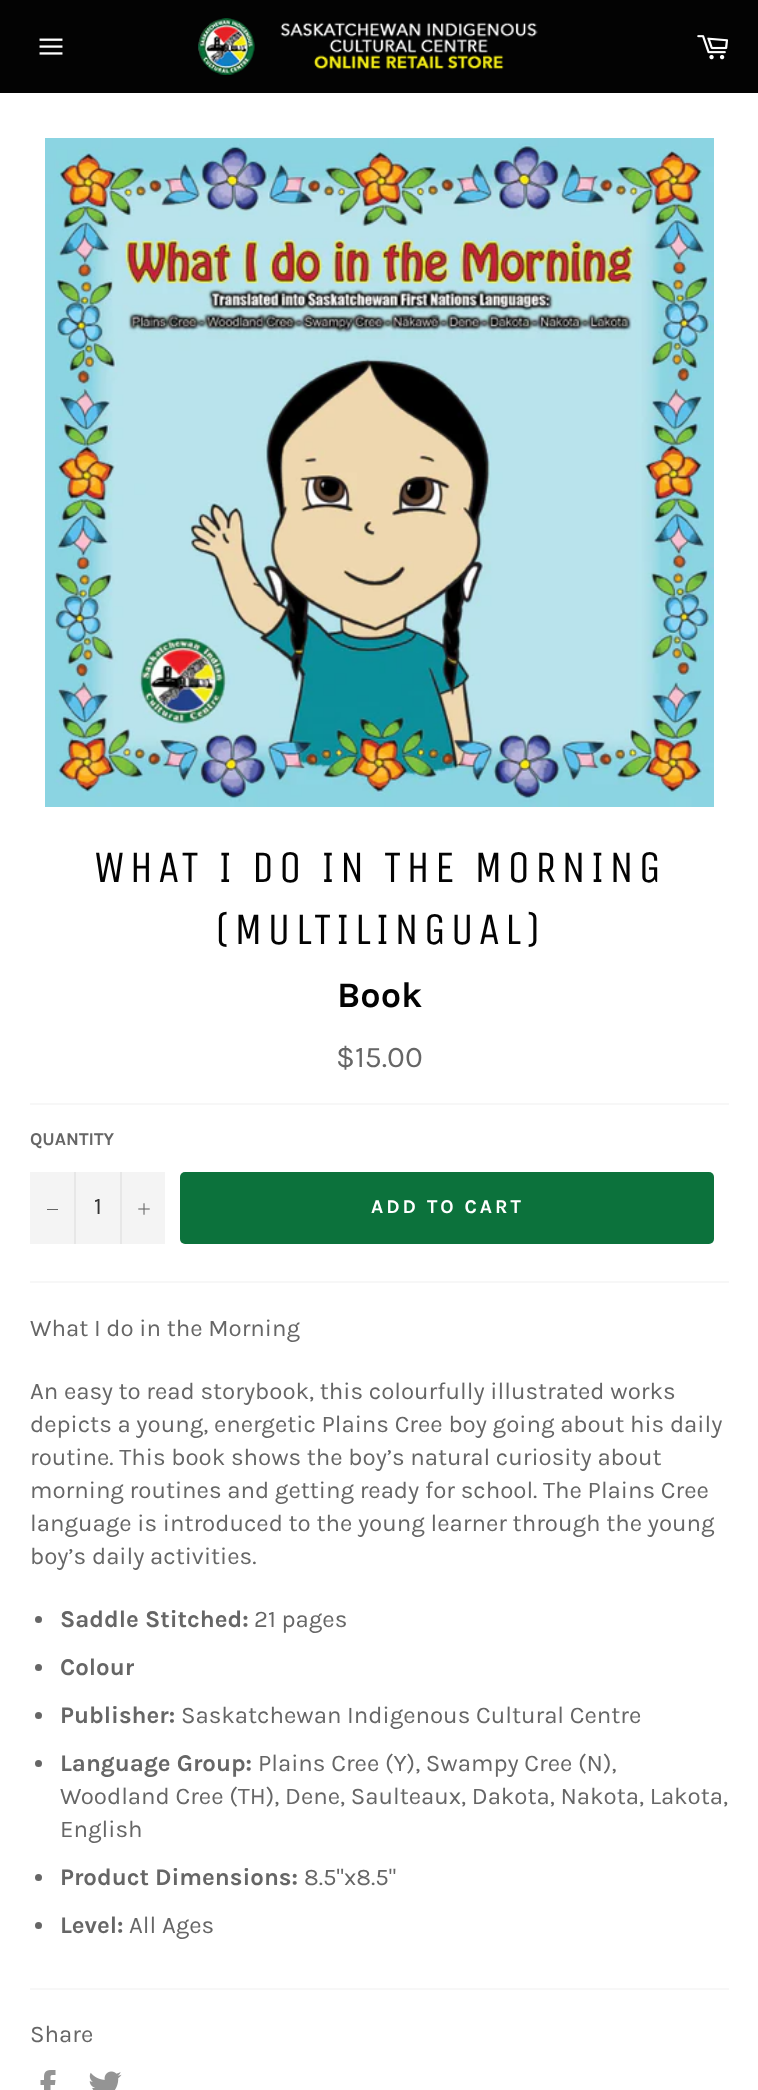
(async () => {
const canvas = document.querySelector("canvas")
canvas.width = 758
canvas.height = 2090
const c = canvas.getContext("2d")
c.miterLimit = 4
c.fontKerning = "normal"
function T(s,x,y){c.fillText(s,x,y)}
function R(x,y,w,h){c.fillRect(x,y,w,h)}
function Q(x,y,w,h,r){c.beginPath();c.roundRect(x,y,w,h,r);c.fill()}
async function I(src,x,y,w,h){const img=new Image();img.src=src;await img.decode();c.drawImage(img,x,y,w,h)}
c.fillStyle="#030303"
R(0,0,758,2090)
await I("1.png",39,38,24,17)
await I("2.png",198,18,340,57)
await I("3.png",697,35,31,25)
c.fillStyle="#fff"
R(0,93,758,1997)
await I("4.png",45,138,669,669)
c.letterSpacing="4.5px"
c.font="45px Unica One"
c.fillStyle="#030303"
T("WHAT I DO IN THE MORNING",94,882)
T("(MULTILINGUAL)",215,944)
c.letterSpacing="0px"
c.font="bold 36px Karla"
T("Book",337,1007)
c.font="30px Karla"
c.fillStyle="#666"
T("$15.00",336,1067)
c.fillStyle="#f7f7f7"
R(30,1103,699,2)
c.font="bold 18px Karla"
c.fillStyle="#666"
T("QUANTITY",30,1145)
c.fillStyle="#f4f4f4"
R(30,1172,135,72)
c.fillStyle="#e7e7e7"
R(74,1172,2,72)
c.fillStyle="#666"
R(47,1209,11,1)
c.font="24px Karla"
c.fillStyle="#333"
T("1",94,1214)
c.fillStyle="#e7e7e7"
R(120,1172,2,72)
await I("5.png",138,1203,12,12)
c.fillStyle="#0c723c"
Q(180,1172,534,72,5)
c.letterSpacing="3px"
c.font="bold 19.5px Karla"
c.fillStyle="#fff"
T("ADD TO CART",371,1213)
c.fillStyle="#f7f7f7"
R(30,1281,699,2)
c.letterSpacing="0px"
c.font="24px Karla"
c.fillStyle="#666"
T("What I do in the Morning",30,1336)
T("An easy to read storybook, this colourfully illustrated works",30,1399)
T("depicts a young, energetic Plains Cree boy going about his daily",30,1432)
T("routine. This book shows the boy’s natural curiosity about",30,1465)
T("morning routines and getting ready for school. The Plains Cree",30,1498)
T("language is introduced to the young learner through the young",30,1531)
T("boy’s daily activities.",30,1564)
c.beginPath()
c.arc(38.5,1619.5,3.5,0,7)
c.fill()
c.font="bold 24px Karla"
T("Saddle Stitched:",60,1627)
c.font="24px Karla"
T("21 pages",254,1627)
c.beginPath()
c.arc(38.5,1667.5,3.5,0,7)
c.fill()
c.font="bold 24px Karla"
T("Colour",60,1675)
c.beginPath()
c.arc(38.5,1715.5,3.5,0,7)
c.fill()
T("Publisher:",60,1723)
c.font="24px Karla"
T("Saskatchewan Indigenous Cultural Centre",181,1723)
c.beginPath()
c.arc(38.5,1763.5,3.5,0,7)
c.fill()
c.font="bold 24px Karla"
T("Language Group:",60,1771)
c.font="24px Karla"
T("Plains Cree (Y), Swampy Cree (N),",258,1771)
T("Woodland Cree (TH), Dene, Saulteaux, Dakota, Nakota, Lakota,",60,1804)
T("English",60,1837)
c.beginPath()
c.arc(38.5,1877.5,3.5,0,7)
c.fill()
c.font="bold 24px Karla"
T("Product Dimensions:",60,1885)
c.font="24px Karla"
T("8.5\"x8.5\"",304,1885)
c.beginPath()
c.arc(38.5,1925.5,3.5,0,7)
c.fill()
c.font="bold 24px Karla"
T("Level:",60,1933)
c.font="24px Karla"
T("All Ages",129,1933)
c.fillStyle="#f7f7f7"
R(30,1988,699,2)
c.fillStyle="#666"
T("Share",30,2042)
await I("6.png",40,2070,16,20)
await I("7.png",89,2071,33,19)
})()
